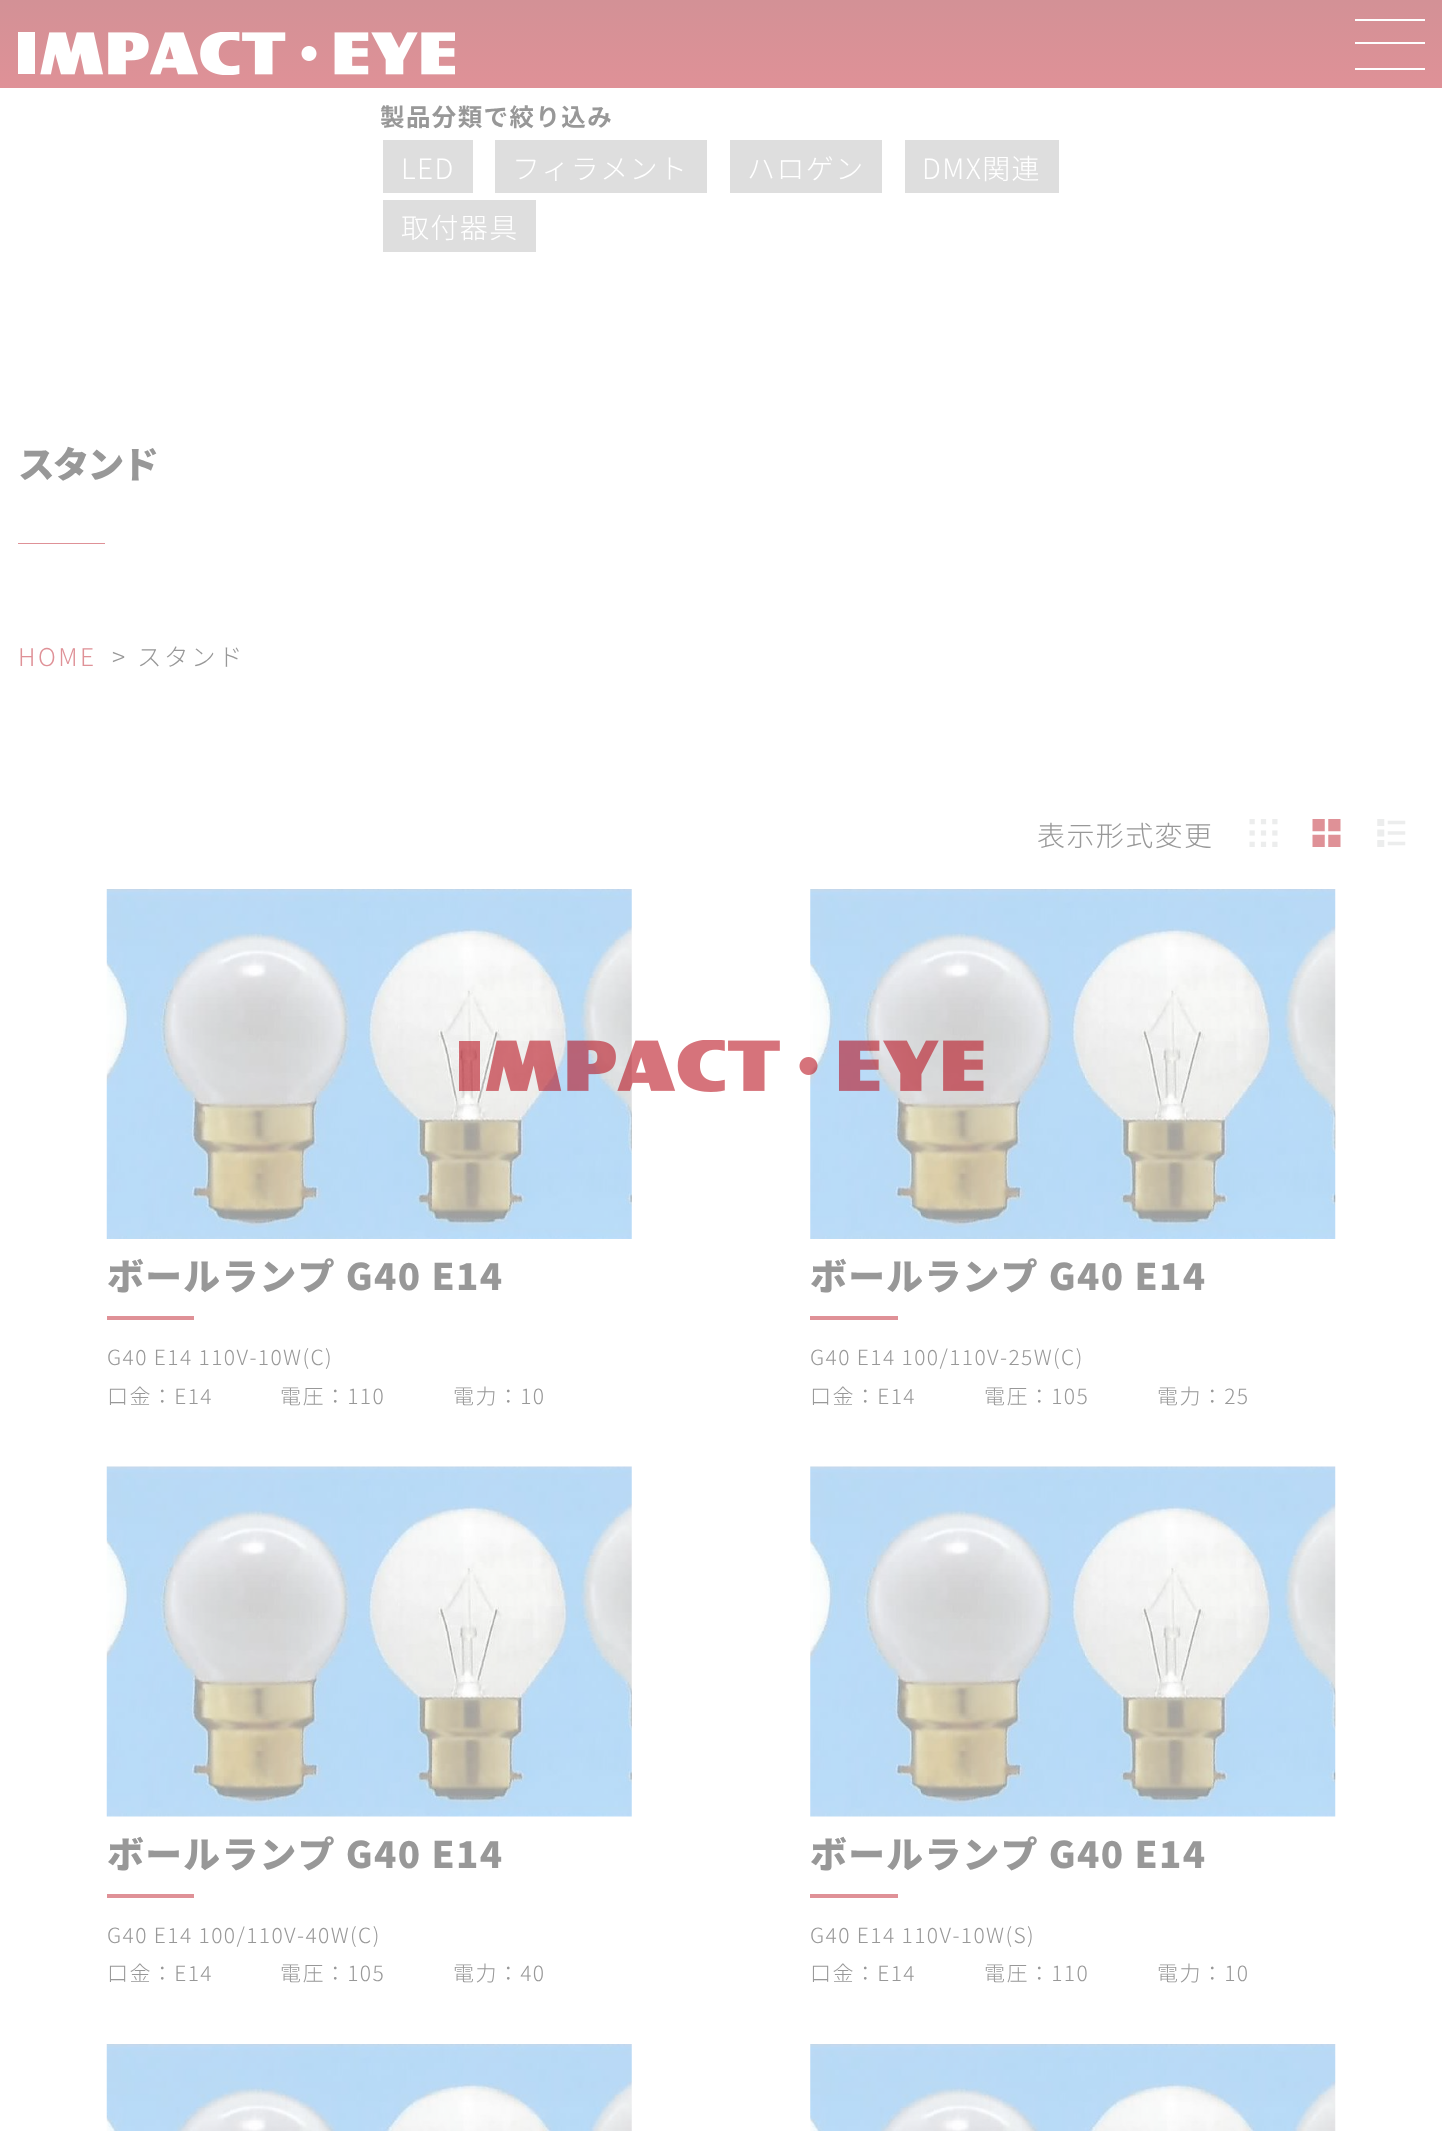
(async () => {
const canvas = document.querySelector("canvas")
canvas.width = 1442
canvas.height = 2131
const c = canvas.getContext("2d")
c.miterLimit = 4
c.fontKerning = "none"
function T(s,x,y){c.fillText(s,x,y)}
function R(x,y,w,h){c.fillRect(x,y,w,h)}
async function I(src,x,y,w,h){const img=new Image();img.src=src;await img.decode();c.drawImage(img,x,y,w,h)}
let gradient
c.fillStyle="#fff"
R(0,0,1442,2131)
gradient = c.createLinearGradient(721,88,721,0)
gradient.addColorStop(0,"#df9197")
gradient.addColorStop(1,"#d39196")
c.fillStyle = gradient
R(0,0,1442,88)
await I("1.png",18,32,437,43)
c.fillStyle="#fff"
R(1355,19,70,2)
R(1355,42,70,2)
R(1355,68,70,2)
c.letterSpacing="1.4px"
c.font="bold 24.5px Noto Sans JP"
c.fillStyle="#989898"
T("製品分類で絞り込み",380,126)
c.fillStyle="#dedede"
R(383,140,90,53)
c.font="300 28px Noto Sans JP"
c.fillStyle="#fff"
T("LED",401,179)
c.fillStyle="#dedede"
R(495,140,212,53)
c.fillStyle="#fff"
T("フィラメント",512,179)
c.fillStyle="#dedede"
R(730,140,152,53)
c.fillStyle="#fff"
T("ハロゲン",747,179)
c.fillStyle="#dedede"
R(905,140,154,53)
c.fillStyle="#fff"
T("DMX関連",922,179)
c.fillStyle="#dedede"
R(383,200,153,52)
c.fillStyle="#fff"
T("取付器具",401,238)
c.letterSpacing="-2px"
c.font="900 36.75px Noto Sans JP"
c.fillStyle="#989898"
T("スタンド",18,478)
c.fillStyle="#df9197"
R(18,543,87,1)
c.letterSpacing="2.5px"
c.font="300 24.5px Noto Sans JP"
T("HOME",18,666)
c.fillStyle="#989898"
T(">",112,666)
T("スタンド",137,666)
c.letterSpacing="1.4px"
c.font="300 28px Noto Sans JP"
T("表示形式変更",1037,846)
await I("2.png",1249,819,29,28)
await I("3.png",1312,819,29,28)
await I("4.png",1377,819,29,28)
await I("5.png",106,889,526,350)
c.font="900 36.75px Noto Sans JP"
T("ボールランプ G40 E14",107,1290)
c.fillStyle="#df9197"
R(107,1316,87,4)
c.font="300 21px Noto Sans JP"
c.fillStyle="#989898"
T("G40 E14 110V-10W(C)",107,1365)
T("口金：E14",107,1404)
T("電圧：110",280,1404)
T("電力：10",453,1404)
await I("6.png",810,889,526,350)
c.font="900 36.75px Noto Sans JP"
T("ボールランプ G40 E14",810,1290)
c.fillStyle="#df9197"
R(810,1316,88,4)
c.font="300 21px Noto Sans JP"
c.fillStyle="#989898"
T("G40 E14 100/110V-25W(C)",810,1365)
T("口金：E14",810,1404)
T("電圧：105",984,1404)
T("電力：25",1157,1404)
await I("7.png",106,1466,526,351)
c.font="900 36.75px Noto Sans JP"
T("ボールランプ G40 E14",107,1868)
c.fillStyle="#df9197"
R(107,1894,87,4)
c.font="300 21px Noto Sans JP"
c.fillStyle="#989898"
T("G40 E14 100/110V-40W(C)",107,1943)
T("口金：E14",107,1981)
T("電圧：105",280,1981)
T("電力：40",453,1981)
await I("8.png",810,1466,526,351)
c.font="900 36.75px Noto Sans JP"
T("ボールランプ G40 E14",810,1868)
c.fillStyle="#df9197"
R(810,1894,88,4)
c.font="300 21px Noto Sans JP"
c.fillStyle="#989898"
T("G40 E14 110V-10W(S)",810,1943)
T("口金：E14",810,1981)
T("電圧：110",984,1981)
T("電力：10",1157,1981)
await I("9.png",106,2044,526,87)
await I("10.png",810,2044,526,87)
await I("11.png",459,1040,525,52)
})()
